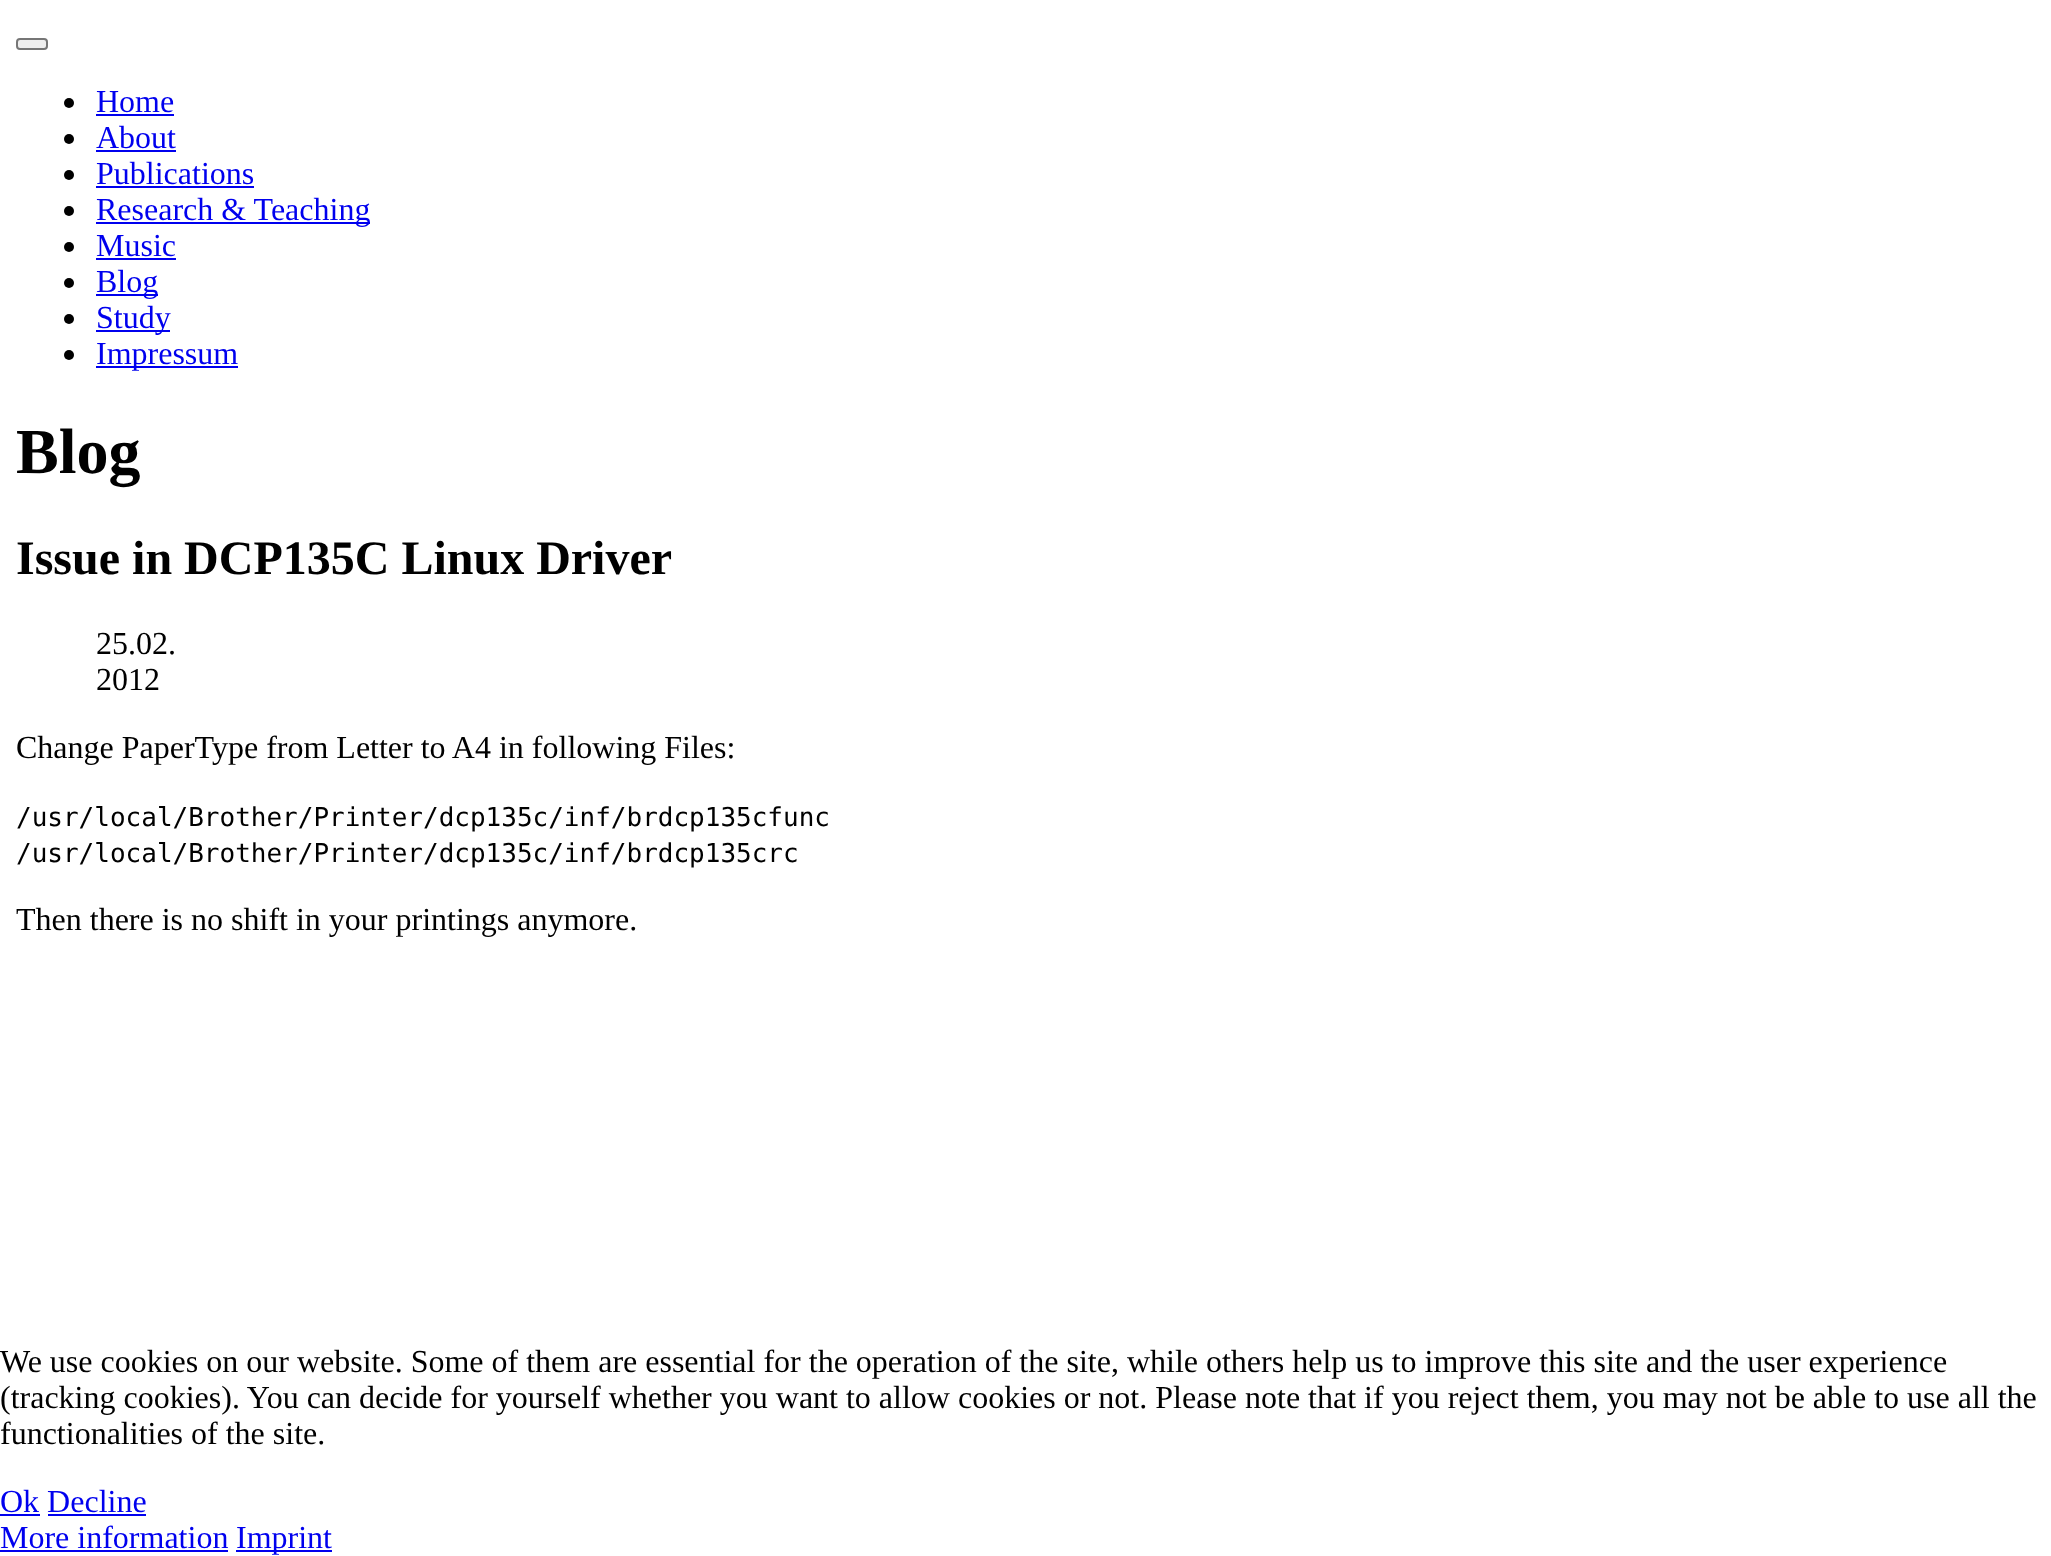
(async () => {
const canvas = document.querySelector("canvas")
canvas.width = 2051
canvas.height = 1556
const c = canvas.getContext("2d")
c.miterLimit = 4
c.fontKerning = "normal"
function T(s,x,y){c.fillText(s,x,y)}
function R(x,y,w,h){c.fillRect(x,y,w,h)}
c.fillStyle="#fff"
R(0,0,2051,1556)
c.fillStyle="#efefef"
c.beginPath()
c.roundRect(17,39,30,10,3)
c.fill()
c.strokeStyle="#767676"
c.lineWidth=2
c.stroke()
c.fillStyle="#000"
c.beginPath()
c.arc(69,103,5,0,7)
c.fill()
c.font="32px Liberation Serif"
c.fillStyle="#00e"
T("Home",96,112)
R(96,114,78,2)
c.fillStyle="#000"
c.beginPath()
c.arc(69,139,5,0,7)
c.fill()
c.fillStyle="#00e"
T("About",96,148)
R(96,150,80,2)
c.fillStyle="#000"
c.beginPath()
c.arc(69,175,5,0,7)
c.fill()
c.fillStyle="#00e"
T("Publications",96,184)
R(96,186,158,2)
c.fillStyle="#000"
c.beginPath()
c.arc(69,211,5,0,7)
c.fill()
c.fillStyle="#00e"
R(96,222,274,2)
T("Research & Teaching",96,220)
c.fillStyle="#000"
c.beginPath()
c.arc(69,247,5,0,7)
c.fill()
c.fillStyle="#00e"
T("Music",96,256)
R(96,258,80,2)
c.fillStyle="#000"
c.beginPath()
c.arc(69,283,5,0,7)
c.fill()
c.fillStyle="#00e"
R(96,294,62,2)
T("Blog",96,292)
c.fillStyle="#000"
c.beginPath()
c.arc(69,319,5,0,7)
c.fill()
c.fillStyle="#00e"
R(96,330,74,2)
T("Study",96,328)
c.fillStyle="#000"
c.beginPath()
c.arc(69,355,5,0,7)
c.fill()
c.fillStyle="#00e"
R(96,366,142,2)
T("Impressum",96,364)
c.font="bold 64px Liberation Serif"
c.fillStyle="#000"
T("Blog",16,473)
c.font="bold 48px Liberation Serif"
T("Issue in DCP135C Linux Driver",16,574)
c.font="32px Liberation Serif"
T("25.02.",96,654)
T("2012",96,690)
T("Change PaperType from Letter to A4 in following Files:",16,758)
c.font="26px DejaVu Sans Mono"
T("/usr/local/Brother/Printer/dcp135c/inf/brdcp135cfunc",16,826)
T("/usr/local/Brother/Printer/dcp135c/inf/brdcp135crc",16,862)
c.font="32px Liberation Serif"
T("Then there is no shift in your printings anymore.",16,930)
T("We use cookies on our website. Some of them are essential for the operation of the site, while others help us to improve this site and the user experience",0,1372)
T("(tracking cookies). You can decide for yourself whether you want to allow cookies or not. Please note that if you reject them, you may not be able to use all the",0,1408)
T("functionalities of the site.",0,1444)
c.fillStyle="#00e"
T("Ok Decline",0,1512)
R(0,1514,40,2)
R(48,1514,98,2)
T("More information",0,1548)
R(0,1550,228,2)
R(236,1550,96,2)
T("Imprint",236,1548)
})()
